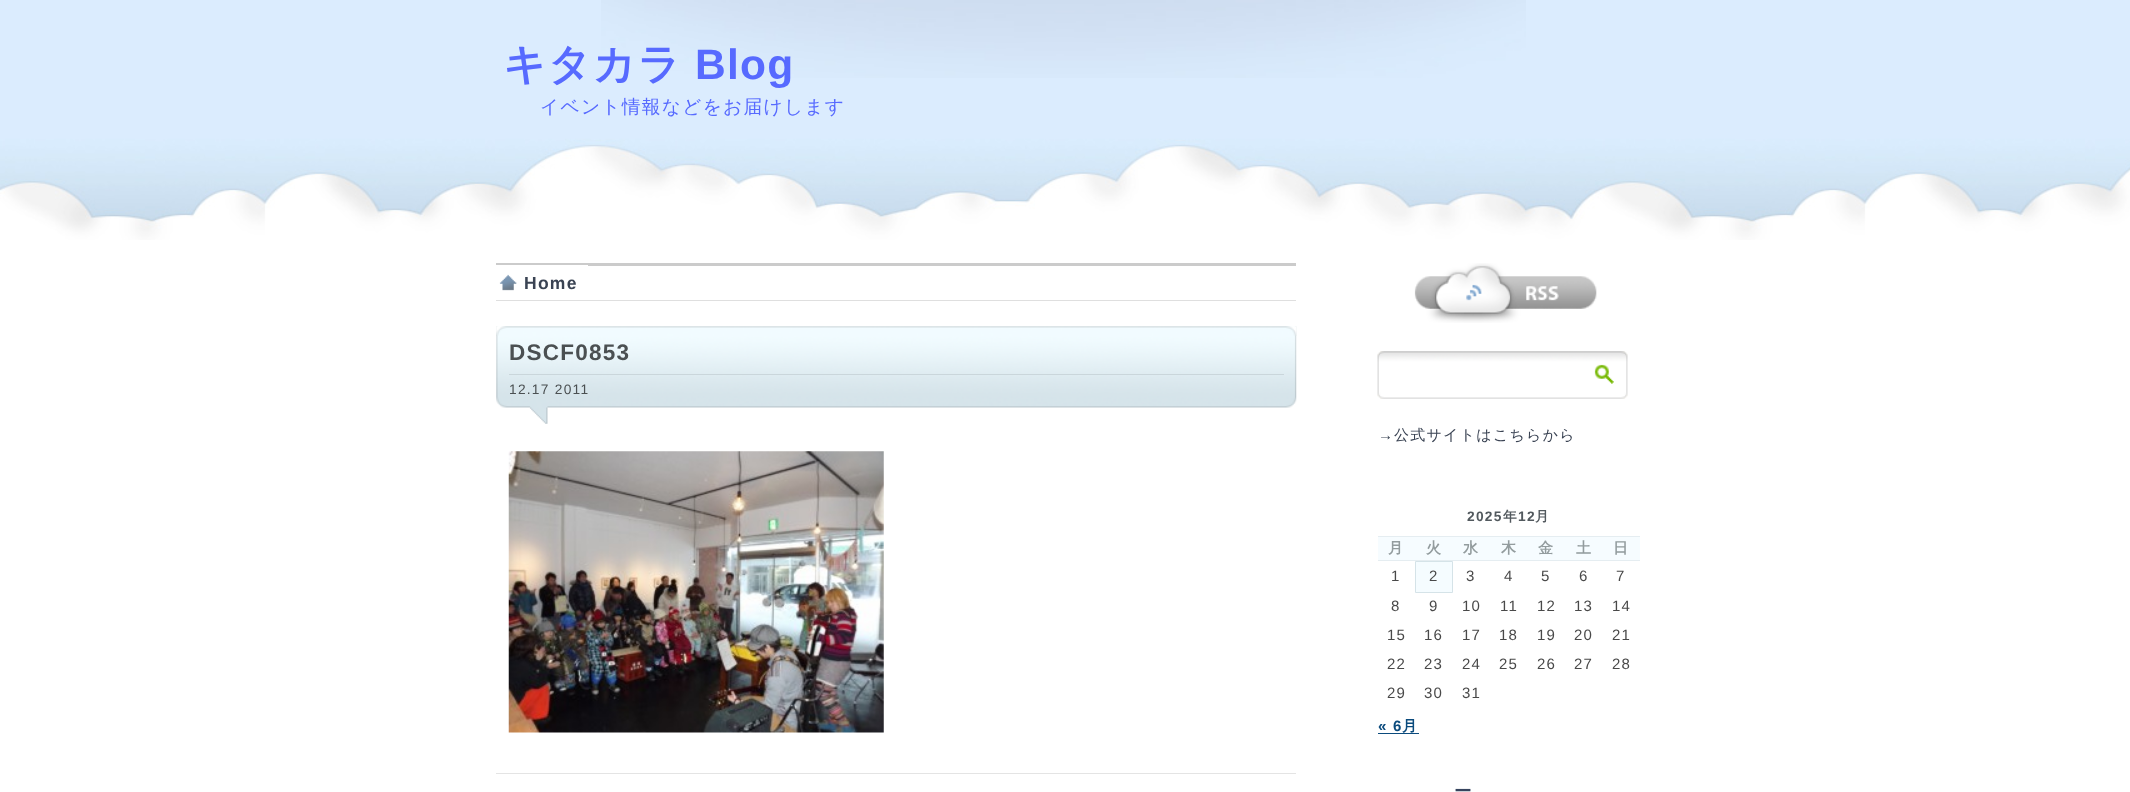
(async () => {
const canvas = document.querySelector("canvas")
canvas.width = 2130
canvas.height = 792
const c = canvas.getContext("2d")
c.miterLimit = 4
c.fontKerning = "normal"
function T(s,x,y){c.fillText(s,x,y)}
function R(x,y,w,h){c.fillRect(x,y,w,h)}
async function I(src,x,y,w,h){const img=new Image();img.src=src;await img.decode();c.drawImage(img,x,y,w,h)}
c.fillStyle="#fff"
R(0,0,2130,792)
await I("1.png",0,0,2130,240)
await I("2.png",601,0,925,78)
c.letterSpacing="1.25px"
c.font="bold 42.5px WenQuanYi Zen Hei"
c.fillStyle="#576aff"
T("キタカラ",503,79)
c.font="bold 42.5px Liberation Sans"
T("Blog",695,79)
c.font="500 18.75px WenQuanYi Zen Hei"
T("イベント情報などをお届けします",540,113)
c.fillStyle="#cbcbcb"
R(496,263,800,3)
c.fillStyle="#dfdfdf"
R(496,300,800,1)
c.fillStyle="#fff"
R(496,265,92,1)
await I("3.png",499,274,18,17)
c.font="bold 17.5px Liberation Sans"
c.fillStyle="#3a4353"
T("Home",524,289)
await I("4.png",496,326,801,98)
await I("5.png",496,326,801,10)
c.font="bold 22.5px Liberation Sans"
c.fillStyle="#4b5052"
T("DSCF0853",509,360)
c.fillStyle="#cad6db"
R(509,374,775,1)
c.font="13.75px Liberation Sans"
c.fillStyle="#4b5052"
T("12.17 2011",509,394)
await I("6.png",508,451,376,282)
c.fillStyle="#e4e4e4"
R(496,773,800,1)
await I("7.png",1414,263,183,60)
await I("8.png",1377,351,251,48)
await I("9.png",1594,364,20,20)
c.font="15px Liberation Sans"
c.fillStyle="#3a4353"
T("→",1378,440)
c.font="500 15px WenQuanYi Zen Hei"
T("公式サイトはこちらから",1394,440)
c.font="bold 13.75px Liberation Sans"
c.fillStyle="#52595e"
T("2025",1467,521)
c.font="bold 13.75px WenQuanYi Zen Hei"
T("年",1503,521)
c.font="bold 13.75px Liberation Sans"
T("12",1518,521)
c.font="bold 13.75px WenQuanYi Zen Hei"
T("月",1535,521)
c.fillStyle="#f6fcff"
R(1378,537,262,23)
c.fillStyle="#e5edf1"
R(1378,536,262,1)
R(1378,560,262,1)
c.font="bold 15px WenQuanYi Zen Hei"
c.fillStyle="#939c9e"
T("月",1388,553)
T("火",1426,553)
T("水",1463,553)
T("木",1501,553)
T("金",1538,553)
T("土",1576,553)
T("日",1613,553)
c.font="15px Liberation Sans"
c.fillStyle="#494949"
T("1",1391,581)
c.fillStyle="#f5fcff"
c.beginPath()
c.rect(1415.5,561.5,37,31)
c.fill()
c.strokeStyle="#d5e3e8"
c.stroke()
c.fillStyle="#494949"
T("2",1429,581)
T("3",1466,581)
T("4",1504,581)
T("5",1541,581)
T("6",1579,581)
T("7",1616,581)
T("8",1391,611)
T("9",1429,611)
T("10",1462,611)
T("11",1500,611)
T("12",1537,611)
T("13",1574,611)
T("14",1612,611)
T("15",1387,640)
T("16",1424,640)
T("17",1462,640)
T("18",1499,640)
T("19",1537,640)
T("20",1574,640)
T("21",1612,640)
T("22",1387,669)
T("23",1424,669)
T("24",1462,669)
T("25",1499,669)
T("26",1537,669)
T("27",1574,669)
T("28",1612,669)
T("29",1387,698)
T("30",1424,698)
T("31",1462,698)
c.font="bold 15px Liberation Sans"
c.fillStyle="#0b4b7d"
T("« 6",1378,731)
R(1378,733,41,1)
c.font="bold 15px WenQuanYi Zen Hei"
T("月",1402,731)
c.font="bold 17.5px WenQuanYi Zen Hei"
c.fillStyle="#36445e"
T("ー",1454,797)
})()
